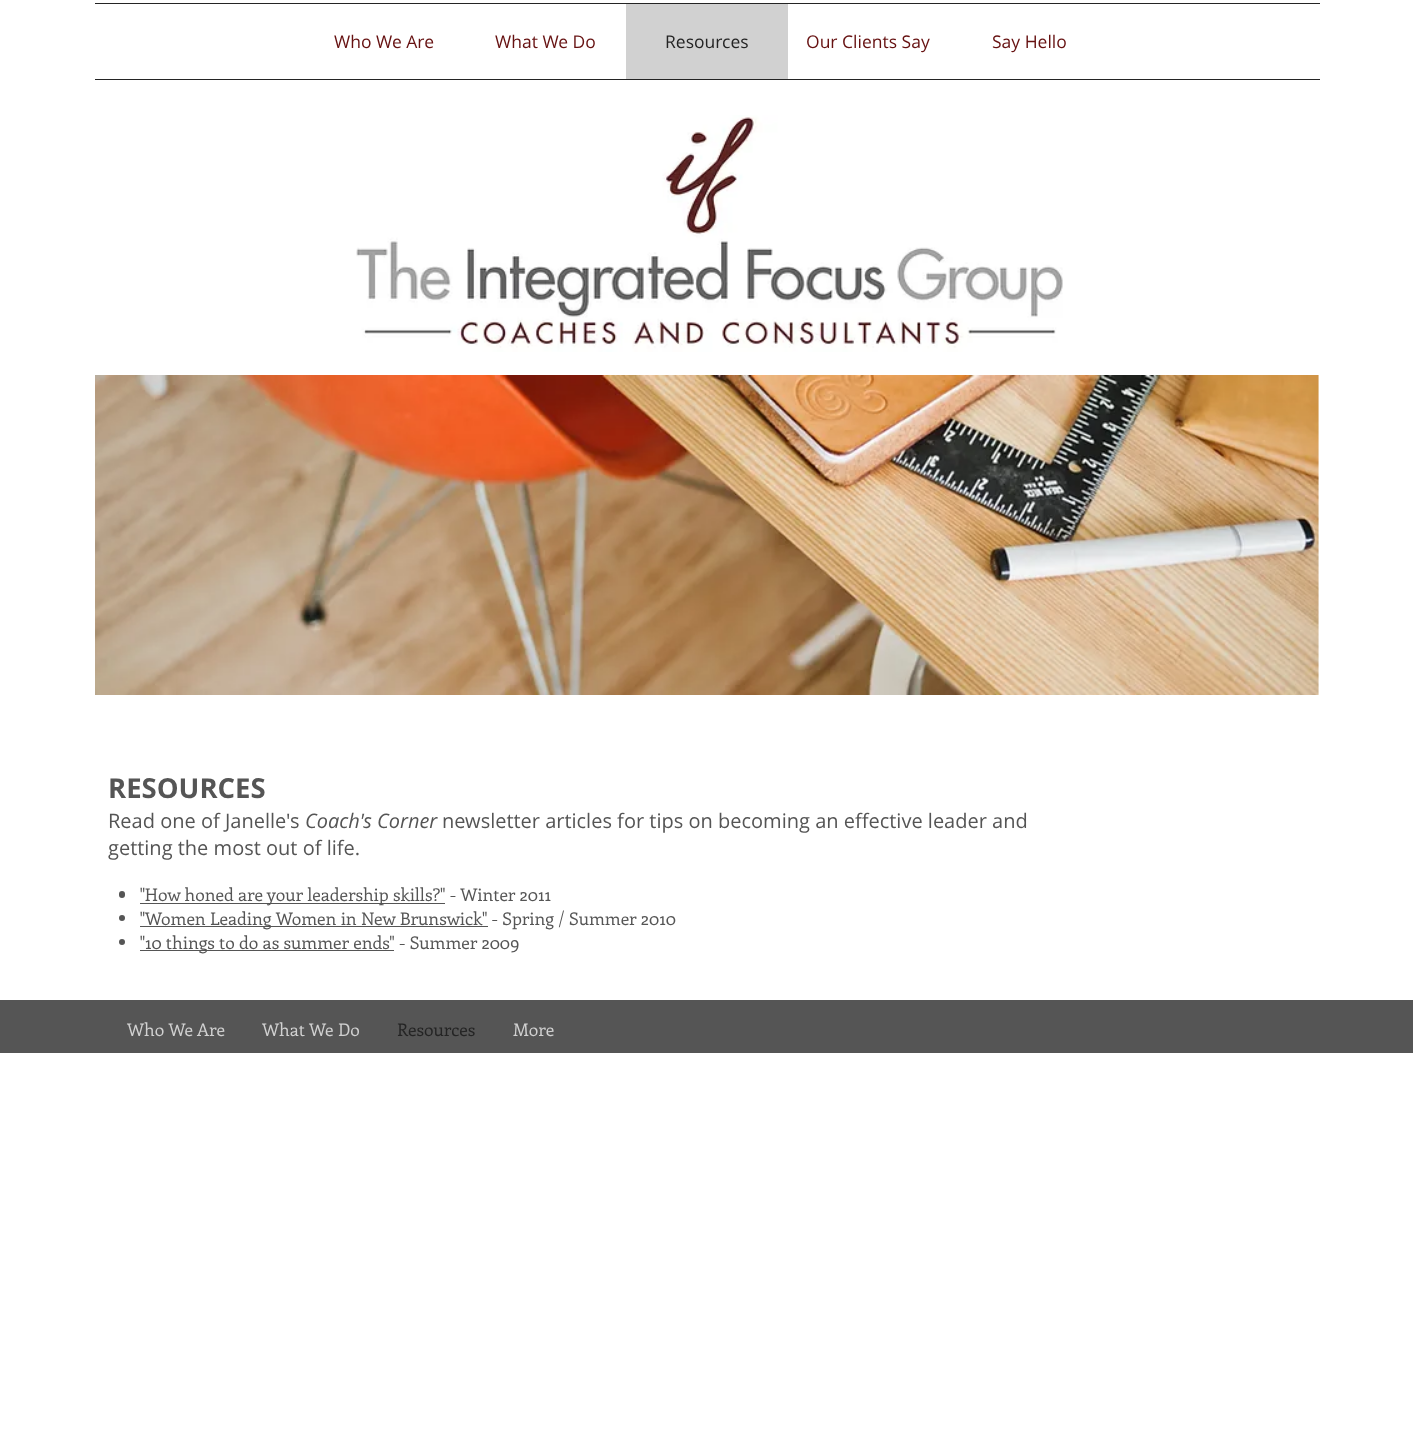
(async () => {
const canvas = document.querySelector("canvas")
canvas.width = 1413
canvas.height = 1454
const c = canvas.getContext("2d")
c.miterLimit = 4
c.fontKerning = "normal"
function T(s,x,y){c.fillText(s,x,y)}
function R(x,y,w,h){c.fillRect(x,y,w,h)}
function Q(x,y,w,h,r){c.beginPath();c.roundRect(x,y,w,h,r);c.fill()}
async function I(src,x,y,w,h){const img=new Image();img.src=src;await img.decode();c.drawImage(img,x,y,w,h)}
c.fillStyle="#fff"
R(0,0,1413,1454)
c.fillStyle="#242424"
R(95,3,1225,1)
R(95,79,1225,1)
c.font="17.5px Open Sans"
c.fillStyle="#611"
T("Who We Are",334,48)
T("What We Do",495,48)
c.fillStyle="#d1d1d1"
R(626,4,162,75)
c.fillStyle="#242424"
T("Resources",665,48)
c.fillStyle="#611"
T("Our Clients Say",806,48)
T("Say Hello",992,48)
await I("1.png",356,115,707,237)
await I("2.png",95,375,1224,320)
c.font="bold 27.5px Open Sans"
c.fillStyle="#555"
T("RESOURCES",108,798)
c.font="20px Open Sans"
T("Read one of Janelle's",108,828)
c.font="italic 20px Open Sans"
T("Coach's Corner",305,828)
c.font="20px Open Sans"
T("newsletter articles for tips on becoming an effective leader and",442,828)
T("getting the most out of life.",108,855)
Q(119,891,6,7,3)
R(140,903,305,1)
c.font="17.5px Enriqueta"
T("\"How honed are your leadership skills?\" - Winter 2011",140,901)
c.beginPath()
c.arc(122,918,3,0,7)
c.fill()
R(140,926,348,1)
T("\"Women Leading Women in New Brunswick\" - Spring / Summer 2010",140,925)
c.beginPath()
c.arc(122,942,3,0,7)
c.fill()
R(140,950,254,1)
T("\"10 things to do as summer ends\" - Summer 2009",140,949)
R(0,1000,1413,53)
c.fillStyle="#d1d1d1"
T("Who We Are",127,1036)
T("What We Do",262,1036)
c.fillStyle="#242424"
T("Resources",397,1036)
c.fillStyle="#d1d1d1"
T("More",513,1036)
})()
